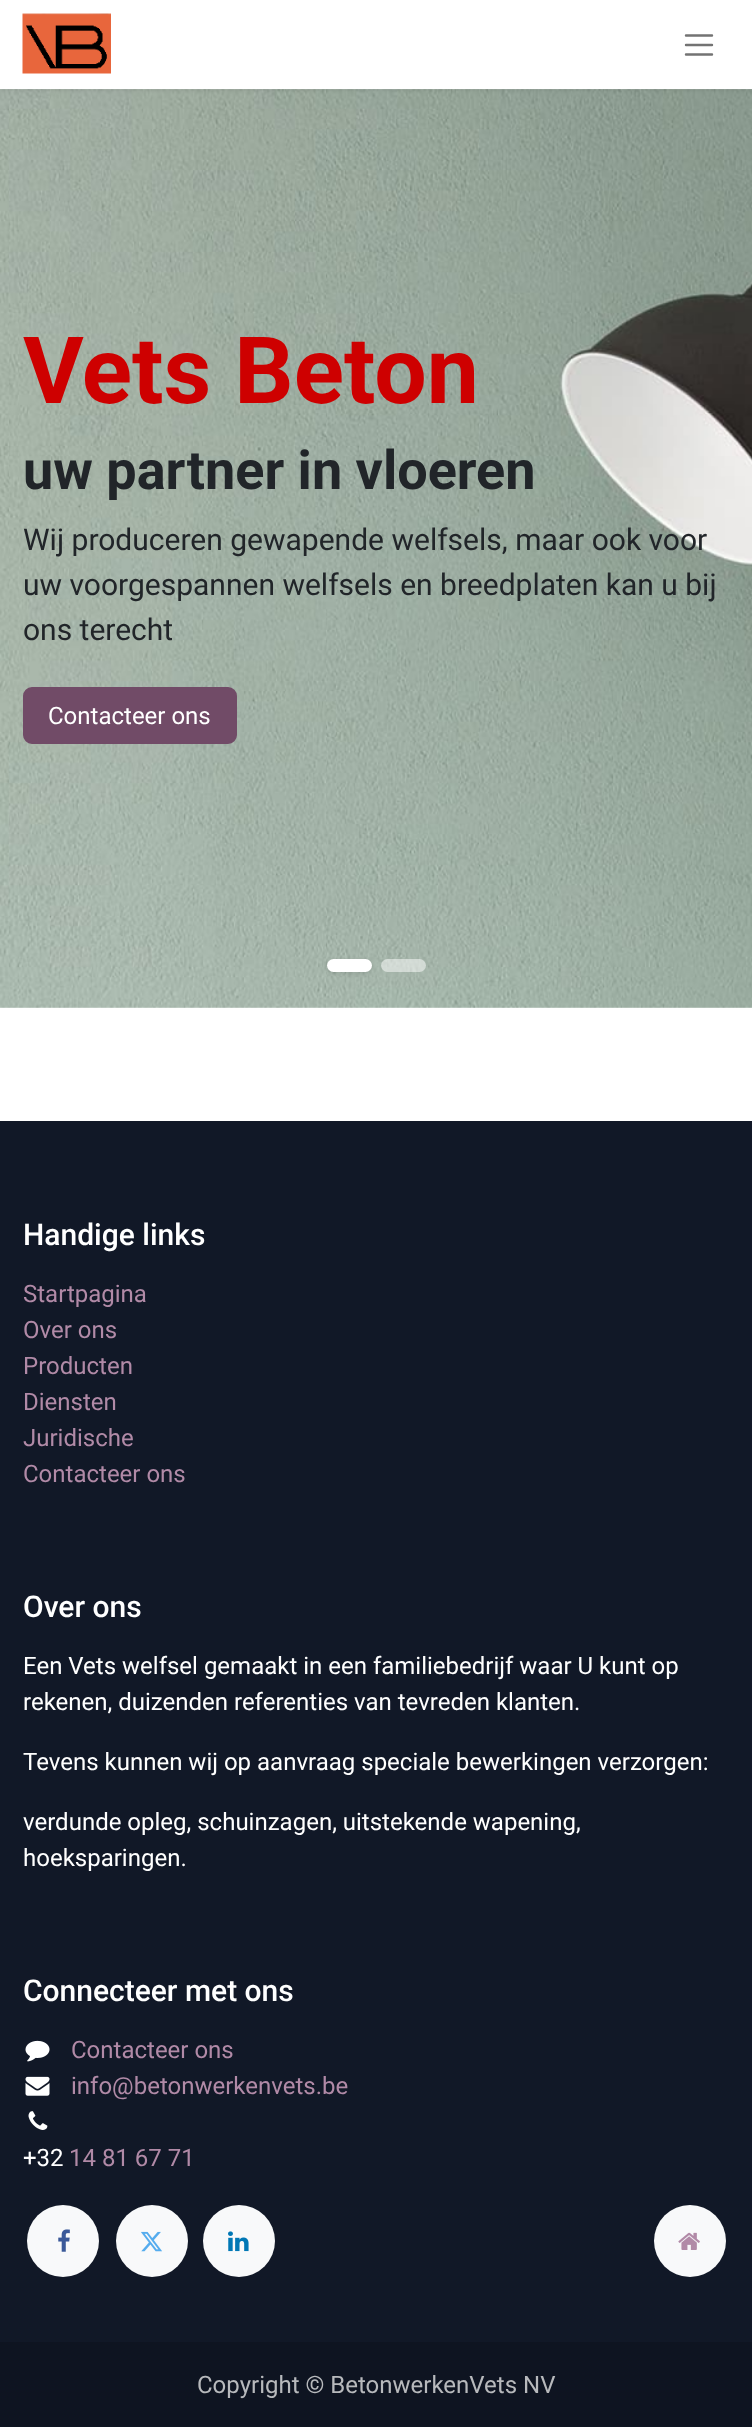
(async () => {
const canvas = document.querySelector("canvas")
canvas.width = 752
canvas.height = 2427
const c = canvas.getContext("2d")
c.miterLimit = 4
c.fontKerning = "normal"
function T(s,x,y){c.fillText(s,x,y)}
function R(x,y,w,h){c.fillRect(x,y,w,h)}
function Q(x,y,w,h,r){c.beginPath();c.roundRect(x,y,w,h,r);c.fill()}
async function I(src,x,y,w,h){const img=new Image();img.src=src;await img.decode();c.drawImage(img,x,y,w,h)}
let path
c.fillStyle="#fff"
R(0,0,752,2427)
await I("2.png",0,89,752,919)
c.fillStyle="#0000001a"
c.filter="blur(2px)"
c.beginPath()
c.rect(0,2,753,88)
c.fill()
c.filter="none"
c.fillStyle="#fff"
R(0,0,752,89)
await I("1.png",22,13,89,61)
path = new Path2D("M686 35.5h26m-26 9.5h26m-26 9.5h26")
c.strokeStyle="#737373"
c.lineWidth=2.4
c.lineCap="round"
c.stroke(path)
c.font="bold 93px Roboto"
c.fillStyle="#ce0000"
T("Vets Beton",23,403)
c.font="bold 54px Roboto"
c.fillStyle="#212529"
T("uw partner in vloeren",23,489)
c.font="30px Roboto"
T("Wij produceren gewapende welfsels, maar ook voor",23,550)
T("uw voorgespannen welfsels en breedplaten kan u bij",23,595)
T("ons terecht",23,640)
c.fillStyle="#714b67"
c.beginPath()
c.roundRect(24,688,212,55,8)
c.fill()
c.strokeStyle="#714b67"
c.lineWidth=2
c.stroke()
c.font="24px Roboto"
c.fillStyle="#fff"
T("Contacteer ons",48,724)
c.fillStyle="#0000001a"
c.filter="blur(2px)"
c.beginPath()
c.roundRect(327,960,45,14,7)
c.fill()
c.filter="none"
c.fillStyle="#fff"
Q(327,959,45,13,6.5)
c.fillStyle="#ffffff80"
Q(381,959,45,13,6.5)
c.fillStyle="#111827"
R(0,1121,752,1221)
c.font="500 30px Roboto"
c.fillStyle="#fff"
T("Handige links",23,1245)
c.font="24px Roboto"
c.fillStyle="#b18aa7"
T("Startpagina",23,1302)
T("Over ons",23,1338)
T("Producten",23,1374)
T("Diensten",23,1410)
T("Juridische",23,1446)
T("Contacteer ons",23,1482)
c.font="500 30px Roboto"
c.fillStyle="#fff"
T("Over ons",23,1617)
c.font="24px Roboto"
T("Een Vets welfsel gemaakt in een familiebedrijf waar U kunt op",23,1674)
T("rekenen, duizenden referenties van tevreden klanten.",23,1710)
T("Tevens kunnen wij op aanvraag speciale bewerkingen verzorgen:",23,1770)
T("verdunde opleg, schuinzagen, uitstekende wapening,",23,1830)
T("hoeksparingen.",23,1866)
c.font="500 30px Roboto"
T("Connecteer met ons",23,2001)
await I("3.png",25,2040,25,22)
c.font="24px Roboto"
c.fillStyle="#b18aa7"
T("Contacteer ons",71,2058)
await I("4.png",25,2076,25,20)
T("info@betonwerkenvets.be",71,2094)
await I("5.png",28,2111,20,19)
c.fillStyle="#fff"
T("+32",23,2166)
c.fillStyle="#b18aa7"
T("14 81 67 71",69,2166)
c.fillStyle="#f8f9fa"
c.beginPath()
c.arc(63,2241,36,0,7)
c.fill()
await I("6.png",58,2229,12,23)
c.beginPath()
c.arc(152,2241,36,0,7)
c.fill()
await I("7.png",141,2231,21,21)
c.beginPath()
c.arc(239,2241,36,0,7)
c.fill()
await I("8.png",228,2231,21,21)
c.beginPath()
c.arc(690,2241,36,0,7)
c.fill()
await I("9.png",678,2232,22,18)
c.fillStyle="#0e1421"
R(0,2342,752,85)
c.fillStyle="#b7b9bc"
T("Copyright © BetonwerkenVets NV",197,2393)
})()
